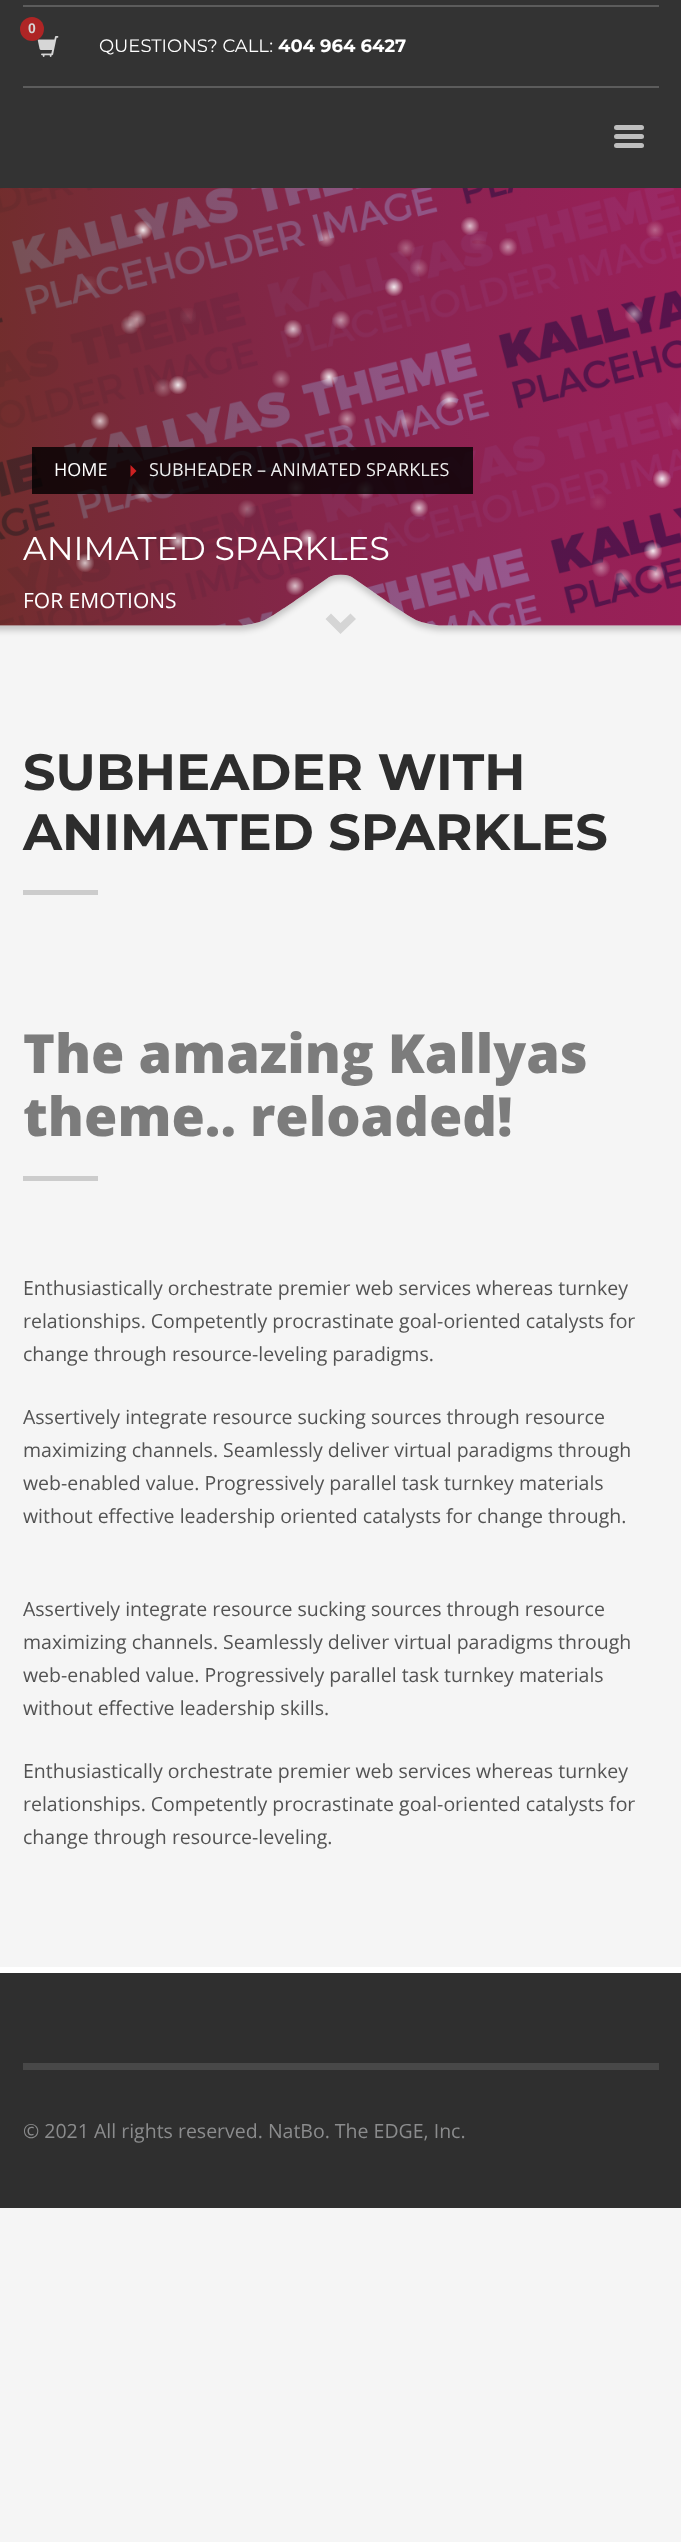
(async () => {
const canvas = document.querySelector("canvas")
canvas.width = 681
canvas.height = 2542
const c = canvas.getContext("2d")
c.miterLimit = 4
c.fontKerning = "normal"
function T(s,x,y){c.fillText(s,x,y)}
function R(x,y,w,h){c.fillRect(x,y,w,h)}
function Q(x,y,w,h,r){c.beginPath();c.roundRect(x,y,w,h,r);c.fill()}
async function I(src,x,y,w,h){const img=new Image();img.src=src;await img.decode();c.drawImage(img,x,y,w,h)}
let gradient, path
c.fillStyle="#f5f5f5"
R(0,0,681,2542)
c.fillStyle="#333"
R(0,0,681,188)
c.fillStyle="#5c5c5c"
R(23,5,636,2)
await I("1.png",37,36,22,21)
c.fillStyle="#ae2525"
c.beginPath()
c.arc(32,29,12,0,7)
c.fill()
c.font="bold 14px Liberation Sans"
c.fillStyle="#d6d6d6"
T("0",28,33)
c.font="18px Montserrat"
c.fillStyle="#fff"
T("QUESTIONS? CALL:",99,52)
c.font="bold 18px Montserrat"
T("404 964 6427",278,52)
c.fillStyle="#5c5c5c"
R(23,86,636,2)
c.fillStyle="#bebebe"
Q(614,125,30,5,2.5)
Q(614,134,30,5,2.5)
Q(614,143,30,5,2.5)
await I("2.png",0,188,681,438)
gradient = c.createLinearGradient(0,413,681,413)
gradient.addColorStop(0,"#35353599")
gradient.addColorStop(1,"#391cbc59")
c.fillStyle = gradient
R(0,188,681,438)
gradient = c.createRadialGradient(143,230,0,143,230,16)
gradient.addColorStop(0,"#ffffffe6")
gradient.addColorStop(.6,"#ffffff00")
c.fillStyle = gradient
R(134,221,18,18)
gradient = c.createRadialGradient(326,238,0,326,238,16)
gradient.addColorStop(0,"#ffffff80")
gradient.addColorStop(.6,"#ffffff00")
c.fillStyle = gradient
R(317,229,18,18)
gradient = c.createRadialGradient(478,242,0,478,242,16)
gradient.addColorStop(0,"#ffffff1a")
gradient.addColorStop(.6,"#ffffff00")
c.fillStyle = gradient
R(470,234,16,16)
gradient = c.createRadialGradient(470,226,0,470,226,16)
gradient.addColorStop(0,"#ffffffb3")
gradient.addColorStop(.6,"#ffffff00")
c.fillStyle = gradient
R(461,217,18,18)
gradient = c.createRadialGradient(655,230,0,655,230,16)
gradient.addColorStop(0,"#ffffff4d")
gradient.addColorStop(.6,"#ffffff00")
c.fillStyle = gradient
R(646,221,18,18)
gradient = c.createRadialGradient(406,248,0,406,248,16)
gradient.addColorStop(0,"#ffffff4d")
gradient.addColorStop(.6,"#ffffff00")
c.fillStyle = gradient
R(397,239,18,18)
gradient = c.createRadialGradient(508,247,0,508,247,16)
gradient.addColorStop(0,"#ffffff80")
gradient.addColorStop(.6,"#ffffff00")
c.fillStyle = gradient
R(499,238,18,18)
gradient = c.createRadialGradient(419,268,0,419,268,16)
gradient.addColorStop(0,"#ffffff4d")
gradient.addColorStop(.6,"#ffffff00")
c.fillStyle = gradient
R(410,259,18,18)
gradient = c.createRadialGradient(89,284,0,89,284,16)
gradient.addColorStop(0,"#ffffff1a")
gradient.addColorStop(.6,"#ffffff00")
c.fillStyle = gradient
R(81,276,16,16)
gradient = c.createRadialGradient(394,287,0,394,287,16)
gradient.addColorStop(0,"#ffffffe6")
gradient.addColorStop(.6,"#ffffff00")
c.fillStyle = gradient
R(385,278,18,18)
gradient = c.createRadialGradient(137,319,0,137,319,16)
gradient.addColorStop(0,"#ffffff80")
gradient.addColorStop(.6,"#ffffff00")
c.fillStyle = gradient
R(128,310,18,18)
gradient = c.createRadialGradient(188,316,0,188,316,16)
gradient.addColorStop(0,"#ffffff1a")
gradient.addColorStop(.6,"#ffffff00")
c.fillStyle = gradient
R(180,308,16,16)
gradient = c.createRadialGradient(341,320,0,341,320,16)
gradient.addColorStop(0,"#ffffff80")
gradient.addColorStop(.6,"#ffffff00")
c.fillStyle = gradient
R(332,311,18,18)
gradient = c.createRadialGradient(634,314,0,634,314,16)
gradient.addColorStop(0,"#ffffff80")
gradient.addColorStop(.6,"#ffffff00")
c.fillStyle = gradient
R(625,305,18,18)
gradient = c.createRadialGradient(130,325,0,130,325,16)
gradient.addColorStop(0,"#ffffff80")
gradient.addColorStop(.6,"#ffffff00")
c.fillStyle = gradient
R(121,316,18,18)
gradient = c.createRadialGradient(293,329,0,293,329,16)
gradient.addColorStop(0,"#ffffffb3")
gradient.addColorStop(.6,"#ffffff00")
c.fillStyle = gradient
R(284,320,18,18)
gradient = c.createRadialGradient(178,385,0,178,385,16)
gradient.addColorStop(0,"#ffffffe6")
gradient.addColorStop(.6,"#ffffff00")
c.fillStyle = gradient
R(169,376,18,18)
gradient = c.createRadialGradient(163,388,0,163,388,16)
gradient.addColorStop(0,"#ffffff4d")
gradient.addColorStop(.6,"#ffffff00")
c.fillStyle = gradient
R(154,379,18,18)
gradient = c.createRadialGradient(281,379,0,281,379,16)
gradient.addColorStop(0,"#b47d91")
gradient.addColorStop(.6,"#832647")
c.fillStyle = gradient
R(272,370,18,18)
gradient = c.createRadialGradient(329,377,0,329,377,16)
gradient.addColorStop(0,"#ffffffe6")
gradient.addColorStop(.6,"#ffffff00")
c.fillStyle = gradient
R(320,368,18,18)
gradient = c.createRadialGradient(449,400,0,449,400,16)
gradient.addColorStop(0,"#ffffffb3")
gradient.addColorStop(.6,"#ffffff00")
c.fillStyle = gradient
R(440,391,18,18)
gradient = c.createRadialGradient(100,421,0,100,421,16)
gradient.addColorStop(0,"#d6bfc3")
gradient.addColorStop(.6,"#782b38")
c.fillStyle = gradient
R(91,412,18,18)
gradient = c.createRadialGradient(347,419,0,347,419,16)
gradient.addColorStop(0,"#ffffff80")
gradient.addColorStop(.6,"#ffffff00")
c.fillStyle = gradient
R(338,410,18,18)
gradient = c.createRadialGradient(406,421,0,406,421,16)
gradient.addColorStop(0,"#ffffff66")
gradient.addColorStop(.6,"#ffffff00")
c.fillStyle = gradient
R(397,412,18,18)
gradient = c.createRadialGradient(676,421,0,676,421,16)
gradient.addColorStop(0,"#ffffff1a")
gradient.addColorStop(.6,"#ffffff00")
c.fillStyle = gradient
R(668,413,13,16)
gradient = c.createRadialGradient(143,493,0,143,493,16)
gradient.addColorStop(0,"#ffffff80")
gradient.addColorStop(.6,"#ffffff00")
c.fillStyle = gradient
R(134,484,18,18)
gradient = c.createRadialGradient(247,509,0,247,509,16)
gradient.addColorStop(0,"#ffffff4d")
gradient.addColorStop(.6,"#ffffff00")
c.fillStyle = gradient
R(238,500,18,18)
gradient = c.createRadialGradient(296,488,0,296,488,16)
gradient.addColorStop(0,"#ffffff66")
gradient.addColorStop(.6,"#ffffff00")
c.fillStyle = gradient
R(287,479,18,18)
gradient = c.createRadialGradient(365,490,0,365,490,16)
gradient.addColorStop(0,"#ffffff66")
gradient.addColorStop(.6,"#ffffff00")
c.fillStyle = gradient
R(356,481,18,18)
gradient = c.createRadialGradient(419,508,0,419,508,16)
gradient.addColorStop(0,"#ffffffb3")
gradient.addColorStop(.6,"#ffffff00")
c.fillStyle = gradient
R(410,499,18,18)
gradient = c.createRadialGradient(598,502,0,598,502,16)
gradient.addColorStop(0,"#ffffff1a")
gradient.addColorStop(.6,"#ffffff00")
c.fillStyle = gradient
R(590,494,16,16)
gradient = c.createRadialGradient(662,479,0,662,479,16)
gradient.addColorStop(0,"#ffffffe6")
gradient.addColorStop(.6,"#ffffff00")
c.fillStyle = gradient
R(653,470,18,18)
gradient = c.createRadialGradient(178,541,0,178,541,16)
gradient.addColorStop(0,"#ffffffb3")
gradient.addColorStop(.6,"#ffffff00")
c.fillStyle = gradient
R(169,532,18,18)
gradient = c.createRadialGradient(308,538,0,308,538,16)
gradient.addColorStop(0,"#ffffffb3")
gradient.addColorStop(.6,"#ffffff00")
c.fillStyle = gradient
R(299,529,18,18)
gradient = c.createRadialGradient(653,551,0,653,551,16)
gradient.addColorStop(0,"#ffffffe6")
gradient.addColorStop(.6,"#ffffff00")
c.fillStyle = gradient
R(644,542,18,18)
gradient = c.createRadialGradient(85,563,0,85,563,16)
gradient.addColorStop(0,"#ffffffb3")
gradient.addColorStop(.6,"#ffffff00")
c.fillStyle = gradient
R(76,554,18,18)
gradient = c.createRadialGradient(295,586,0,295,586,16)
gradient.addColorStop(0,"#dabec8")
gradient.addColorStop(.6,"#842648")
c.fillStyle = gradient
R(286,577,18,18)
gradient = c.createRadialGradient(601,568,0,601,568,16)
gradient.addColorStop(0,"#ffffff66")
gradient.addColorStop(.6,"#ffffff00")
c.fillStyle = gradient
R(592,559,18,18)
gradient = c.createRadialGradient(623,578,0,623,578,16)
gradient.addColorStop(0,"#ffffff80")
gradient.addColorStop(.6,"#ffffff00")
c.fillStyle = gradient
R(614,569,18,18)
gradient = c.createRadialGradient(656,574,0,656,574,16)
gradient.addColorStop(0,"#ffffffb3")
gradient.addColorStop(.6,"#ffffff00")
c.fillStyle = gradient
R(647,565,18,18)
c.fillStyle="#000000cc"
R(32,447,84,47)
c.font="18px Open Sans"
c.fillStyle="#fff"
T("HOME",54,476)
c.fillStyle="#000000cc"
R(116,447,357,47)
c.fillStyle="#cd2122"
path = new Path2D("M130.5 477v-12l6 6z")
c.fill(path)
c.fillStyle="#eee"
T("SUBHEADER – ANIMATED SPARKLES",149,476)
c.font="33px Montserrat"
c.fillStyle="#fff"
T("ANIMATED SPARKLES",23,560)
c.font="21px Open Sans"
T("FOR EMOTIONS",23,608)
await I("3.png",0,574,681,64)
c.fillStyle="#d5d5d5"
path = new Path2D("M356 619l-15.5 15l-15-15l5.5-5.5l9.5 9.5l10-9.5z")
c.fill(path)
c.font="bold 51px Montserrat"
c.fillStyle="#2d2d2d"
T("SUBHEADER WITH",23,790)
T("ANIMATED SPARKLES",23,850)
c.fillStyle="#ccc"
R(23,890,75,5)
c.font="800 54px Open Sans"
c.fillStyle="#7c7c7c"
T("The amazing Kallyas",23,1073)
T("theme.. reloaded!",23,1136)
c.fillStyle="#ccc"
R(23,1176,75,5)
c.font="19.5px Open Sans"
c.fillStyle="#535353"
T("Enthusiastically orchestrate premier web services whereas turnkey",23,1295)
T("relationships. Competently procrastinate goal-oriented catalysts for",23,1328)
T("change through resource-leveling paradigms.",23,1361)
T("Assertively integrate resource sucking sources through resource",23,1424)
T("maximizing channels. Seamlessly deliver virtual paradigms through",23,1457)
T("web-enabled value. Progressively parallel task turnkey materials",23,1490)
T("without effective leadership oriented catalysts for change through.",23,1523)
T("Assertively integrate resource sucking sources through resource",23,1616)
T("maximizing channels. Seamlessly deliver virtual paradigms through",23,1649)
T("web-enabled value. Progressively parallel task turnkey materials",23,1682)
T("without effective leadership skills.",23,1715)
T("Enthusiastically orchestrate premier web services whereas turnkey",23,1778)
T("relationships. Competently procrastinate goal-oriented catalysts for",23,1811)
T("change through resource-leveling.",23,1844)
c.fillStyle="#2f2f2f"
R(0,1973,681,235)
c.fillStyle="#fff"
R(0,1967,681,6)
c.fillStyle="#484848"
R(23,2063,636,7)
c.fillStyle="#8b8c8d"
T("© 2021 All rights reserved. NatBo. The EDGE, Inc.",23,2138)
})()
